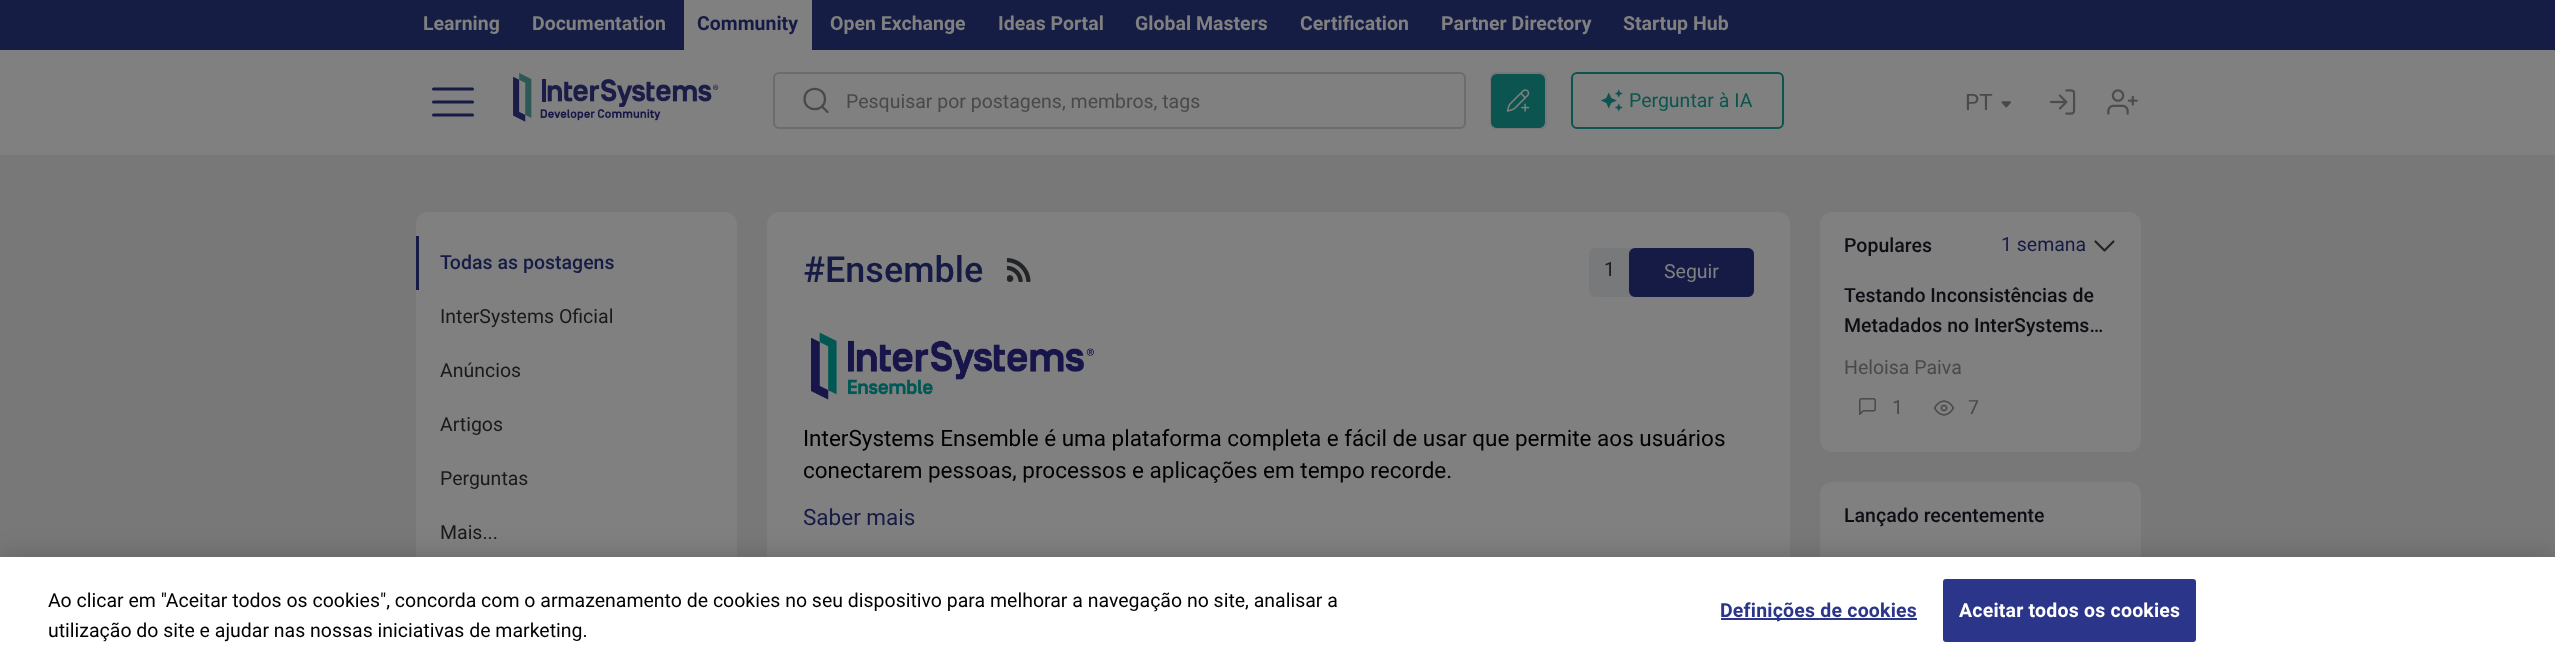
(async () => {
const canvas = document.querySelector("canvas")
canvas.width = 2555
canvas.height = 659
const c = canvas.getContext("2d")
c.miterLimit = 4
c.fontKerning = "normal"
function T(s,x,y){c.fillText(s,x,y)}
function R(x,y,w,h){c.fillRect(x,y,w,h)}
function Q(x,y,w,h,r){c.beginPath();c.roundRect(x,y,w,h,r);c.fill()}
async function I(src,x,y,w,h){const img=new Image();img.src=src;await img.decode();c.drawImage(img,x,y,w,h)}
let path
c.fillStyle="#787879"
R(0,0,2555,659)
c.fillStyle="#808080"
R(0,50,2555,105)
c.fillStyle="#151d44"
R(0,0,2555,50)
c.font="bold 19.5px Roboto"
c.fillStyle="#808080"
T("Learning",423,30)
T("Documentation",532,30)
R(684,0,128,50)
c.fillStyle="#161b45"
T("Community",697,30)
c.fillStyle="#808080"
T("Open Exchange",830,30)
T("Ideas Portal",998,30)
T("Global Masters",1135,30)
T("Certification",1300,30)
T("Partner Directory",1441,30)
T("Startup Hub",1623,30)
path = new Path2D("M433.5 102h39m-39-13h39m-39 26h39")
c.strokeStyle="#161b45"
c.lineWidth=3
c.lineCap="round"
c.lineJoin="round"
c.stroke(path)
await I("1.png",513,73,206,49)
path = new Path2D("M827.5 112l-5.5-5.5m3-7.5c0 13.5-20.5 13.5-20.5 0c0-13.5 20.5-13.5 20.5 0z")
c.strokeStyle="#494949"
c.lineWidth=2.2
c.stroke(path)
c.beginPath()
c.roundRect(774,73,691,55,5)
c.strokeStyle="#6c6c6c"
c.lineWidth=2
c.lineJoin="miter"
c.stroke()
c.font="19.5px Roboto"
c.fillStyle="#494949"
T("Pesquisar por postagens, membros, tags",846,108)
c.fillStyle="#787878"
Q(1490,72,57,57,6)
await I("2.png",1491,74,54,54)
await I("3.png",1600,89,23,23)
c.beginPath()
c.roundRect(1572,73,211,55,5)
c.strokeStyle="#0c554f"
c.stroke()
c.fillStyle="#0c554f"
T("Perguntar à IA",1629,107)
c.font="22.5px Roboto"
c.fillStyle="#494949"
T("PT",1965,110)
await I("4.png",2001,101,10,7)
await I("5.png",2049,89,27,26)
await I("6.png",2107,89,31,26)
c.fillStyle="#808080"
Q(416,212,321,372,12)
c.fillStyle="#161b45"
R(416,236,3,54)
c.font="500 19.5px Roboto"
T("Todas as postagens",440,269)
c.font="19.5px Roboto"
c.fillStyle="#1a1a1a"
T("InterSystems Oficial",440,323)
T("Anúncios",440,377)
T("Artigos",440,431)
T("Perguntas",440,485)
T("Mais...",440,539)
c.fillStyle="#808080"
Q(767,212,1023,406,12)
c.font="500 36px Roboto"
c.fillStyle="#161b45"
T("#Ensemble",803,282)
await I("7.png",1007,258,24,24)
c.fillStyle="#78797a"
Q(1589,248,165,49,6)
c.font="19.5px Roboto"
c.fillStyle="#1a1a1a"
T("1",1604,276)
c.fillStyle="#161b45"
c.beginPath()
c.roundRect(1630,249,123,47,5)
c.fill()
c.strokeStyle="#161b45"
c.stroke()
c.fillStyle="#808080"
T("Seguir",1664,278)
await I("8.png",811,332,283,68)
c.font="22.5px Roboto"
c.fillStyle="#000"
T("InterSystems Ensemble é uma plataforma completa e fácil de usar que permite aos usuários",803,446)
T("conectarem pessoas, processos e aplicações em tempo recorde.",803,478)
c.fillStyle="#161b45"
T("Saber mais",803,525)
c.fillStyle="#808080"
Q(1820,212,321,240,12)
c.font="500 19.5px Roboto"
c.fillStyle="#0d0e14"
T("Populares",1844,252)
c.font="19.5px Roboto"
c.fillStyle="#161b45"
T("1 semana",2001,251)
path = new Path2D("M2113.5 241.5l-9 9l-9-9")
c.strokeStyle="#222426"
c.lineWidth=2.2
c.lineJoin="round"
c.stroke(path)
c.font="500 19.5px Roboto"
c.fillStyle="#0d0e14"
T("Testando Inconsistências de",1844,302)
T("Metadados no InterSystems…",1844,332)
c.font="19.5px Roboto"
c.fillStyle="#494949"
T("Heloisa Paiva",1844,374)
await I("9.png",1859,398,17,17)
T("1",1892,414)
await I("10.png",1933,400,22,16)
T("7",1968,414)
c.fillStyle="#808080"
Q(1820,482,321,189,12)
c.font="500 19.5px Roboto"
c.fillStyle="#0d0e14"
T("Lançado recentemente",1844,522)
c.fillStyle="#00000033"
c.filter="blur(13.5px)"
c.beginPath()
c.rect(0,557,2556,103)
c.fill()
c.filter="none"
c.fillStyle="#fff"
R(0,557,2555,102)
c.font="19.5px Roboto"
c.fillStyle="#000"
T("Ao clicar em \"Aceitar todos os cookies\", concorda com o armazenamento de cookies no seu dispositivo para melhorar a navegação no site, analisar a",48,607)
T("utilização do site e ajudar nas nossas iniciativas de marketing.",48,637)
c.fillStyle="#2b3589"
R(1721,618,196,2)
c.letterSpacing="0.2px"
c.font="bold 19.5px Roboto"
T("Definições de cookies",1720,617)
c.beginPath()
c.roundRect(1944,580,251,61,2)
c.fill()
c.strokeStyle="#2b3589"
c.lineWidth=2
c.lineJoin="miter"
c.stroke()
c.fillStyle="#fff"
T("Aceitar todos os cookies",1959,617)
})()
